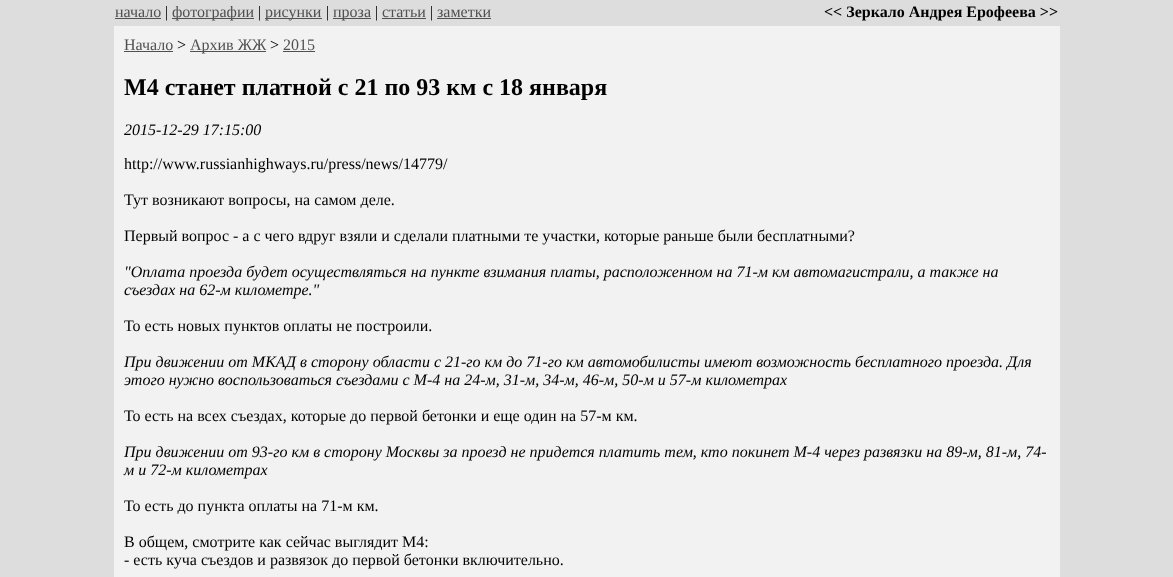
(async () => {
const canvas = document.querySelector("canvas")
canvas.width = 1173
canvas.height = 577
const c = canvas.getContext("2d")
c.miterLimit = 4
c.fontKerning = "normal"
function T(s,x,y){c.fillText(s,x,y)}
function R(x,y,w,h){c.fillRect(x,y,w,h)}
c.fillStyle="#ddd"
R(0,0,1173,577)
c.font="16px Liberation Serif"
c.fillStyle="#505050"
T("начало",115,17)
R(115,18,46,1)
c.fillStyle="#000"
T("|",165,17)
c.fillStyle="#505050"
R(172,18,82,1)
T("фотографии",172,17)
c.fillStyle="#000"
T("|",258,17)
c.fillStyle="#505050"
R(265,18,57,1)
T("рисунки",265,17)
c.fillStyle="#000"
T("|",326,17)
c.fillStyle="#505050"
R(333,18,38,1)
T("проза",333,17)
c.fillStyle="#000"
T("|",375,17)
c.fillStyle="#505050"
T("статьи",382,17)
R(382,18,44,1)
c.fillStyle="#000"
T("|",430,17)
c.fillStyle="#505050"
T("заметки",437,17)
R(437,18,54,1)
c.font="bold 16px Liberation Serif"
c.fillStyle="#000"
T("<< Зеркало Андрея Ерофеева >>",824,17)
c.fillStyle="#f2f2f2"
R(114,26,946,551)
c.font="16px Liberation Serif"
c.fillStyle="#505050"
T("Начало",124,50)
R(124,51,49,1)
c.fillStyle="#000"
T(">",177,50)
c.fillStyle="#505050"
R(190,51,76,1)
T("Архив ЖЖ",190,50)
c.fillStyle="#000"
T(">",270,50)
c.fillStyle="#505050"
T("2015",283,50)
R(283,51,32,1)
c.font="bold 24px Liberation Serif"
c.fillStyle="#000"
T("М4 станет платной с 21 по 93 км с 18 января",124,95)
c.font="italic 16px Liberation Serif"
T("2015-12-29 17:15:00",124,135)
c.font="16px Liberation Serif"
T("http://www.russianhighways.ru/press/news/14779/",124,169)
T("Тут возникают вопросы, на самом деле.",124,205)
T("Первый вопрос - а с чего вдруг взяли и сделали платными те участки, которые раньше были бесплатными?",124,241)
c.font="italic 16px Liberation Serif"
T("\"Оплата проезда будет осуществляться на пункте взимания платы, расположенном на 71-м км автомагистрали, а также на",124,277)
T("съездах на 62-м километре.\"",124,295)
c.font="16px Liberation Serif"
T("То есть новых пунктов оплаты не построили.",124,331)
c.font="italic 16px Liberation Serif"
T("При движении от МКАД в сторону области с 21-го км до 71-го км автомобилисты имеют возможность бесплатного проезда. Для",124,367)
T("этого нужно воспользоваться съездами с М-4 на 24-м, 31-м, 34-м, 46-м, 50-м и 57-м километрах",124,385)
c.font="16px Liberation Serif"
T("То есть на всех съездах, которые до первой бетонки и еще один на 57-м км.",124,421)
c.font="italic 16px Liberation Serif"
T("При движении от 93-го км в сторону Москвы за проезд не придется платить тем, кто покинет М-4 через развязки на 89-м, 81-м, 74-",124,457)
T("м и 72-м километрах",124,475)
c.font="16px Liberation Serif"
T("То есть до пункта оплаты на 71-м км.",124,511)
T("В общем, смотрите как сейчас выглядит М4:",124,547)
T("- есть куча съездов и развязок до первой бетонки включительно.",124,565)
})()
